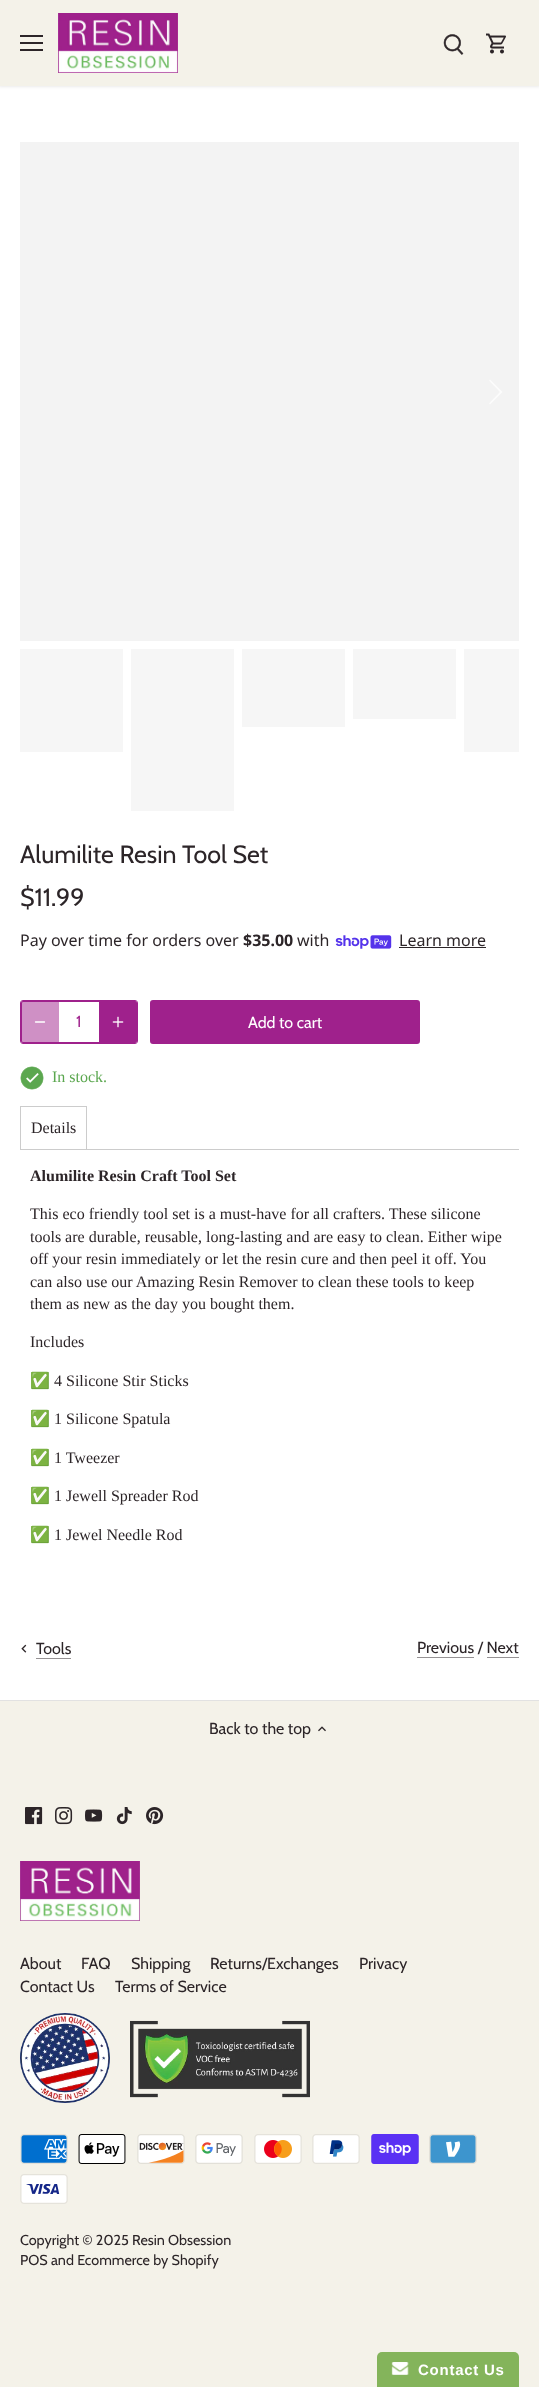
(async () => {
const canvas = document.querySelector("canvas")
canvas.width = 539
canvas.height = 2387
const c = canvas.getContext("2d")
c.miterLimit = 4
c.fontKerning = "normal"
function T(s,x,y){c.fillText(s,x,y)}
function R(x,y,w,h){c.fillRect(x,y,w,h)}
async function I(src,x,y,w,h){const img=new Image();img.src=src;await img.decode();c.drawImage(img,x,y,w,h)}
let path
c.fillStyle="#f4f2e9"
R(0,0,539,2387)
c.fillStyle="#fff"
R(0,86,539,1614)
c.fillStyle="#00000014"
c.filter="blur(1.5px)"
c.beginPath()
c.rect(-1,-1,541,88)
c.fill()
c.filter="none"
c.fillStyle="#f4f2e9"
R(0,0,539,86)
c.fillStyle="#2c2528"
R(20,35,23,2)
R(20,42,23,2)
R(20,49,23,2)
await I("1.png",58,13,120,60)
await I("2.png",443,34,21,21)
await I("3.png",486,33,20,21)
c.fillStyle="#f3f3f3"
R(20,142,499,499)
c.fillStyle="#fcfcfc"
path = new Path2D("M490 379.5l-1 1l11 11.5l-11 11.5l1 1l12.5-12.5z")
c.fill(path)
c.fillStyle="#f6f6f6"
R(20,649,103,103)
R(131,649,103,162)
R(242,649,103,78)
R(353,649,103,70)
R(464,649,55,103)
c.font="25px Cabin"
c.fillStyle="#2c2528"
T("Alumilite Resin Tool Set",20,863)
T("$11.99",20,906)
c.font="16px Noto Sans"
T("Pay over time for orders over",20,946)
c.font="bold 16px Noto Sans"
T("$35.00",243,946)
c.font="16px Noto Sans"
T("with",297,946)
await I("4.png",335,935,57,14)
T("Learn more",399,946)
R(399,947,87,1)
c.beginPath()
c.roundRect(21.5,1001.5,115,41,1.5)
c.strokeStyle="#9f218c"
c.stroke()
c.beginPath()
c.roundRect(20.5,1000.5,117,43,2.5)
c.stroke()
c.fillStyle="#9f218c80"
c.beginPath()
c.roundRect(21,1001,38,42,[3,0,0,3])
c.fill()
path = new Path2D("M35.5 1022h9")
c.strokeStyle="#fff"
c.lineWidth=1.3
c.lineCap="round"
c.lineJoin="round"
c.stroke(path)
c.font="16px Cabin"
c.fillStyle="#9f218c"
T("1",76,1027)
c.save()
c.beginPath()
c.roundRect(21,1001,116,42,2)
c.clip()
c.beginPath()
c.roundRect(99,1001,38,42,[0,3,3,0])
c.fill()
c.restore()
await I("5.png",112,1016,12,12)
c.beginPath()
c.roundRect(151,1001,268,42,2)
c.fill()
c.strokeStyle="#9f218c"
c.lineWidth=2
c.lineJoin="miter"
c.stroke()
c.fillStyle="#fff"
T("Add to cart",248,1028)
await I("6.png",20,1066,24,24)
c.font="16px Liberation Serif"
c.fillStyle="#5ba74f"
T("In stock.",52,1082)
c.fillStyle="#ccc"
R(20,1149,499,1)
R(20,1106,67,1)
R(86,1106,1,43)
R(20,1106,1,43)
c.fillStyle="#2c2528"
T("Details",31,1133)
c.font="bold 16px Liberation Serif"
T("Alumilite Resin Craft Tool Set",30,1181)
c.font="16px Liberation Serif"
T("This eco friendly tool set is a must-have for all crafters. These silicone",30,1219)
T("tools are durable, reusable, long-lasting and are easy to clean. Either wipe",30,1242)
T("off your resin immediately or let the resin cure and then peel it off. You",30,1264)
T("can also use our Amazing Resin Remover to clean these tools to keep",30,1287)
T("them as new as the day you bought them.",30,1309)
T("Includes",30,1347)
c.font="16px Noto Color Emoji"
T("✅",30,1386)
c.font="16px Liberation Serif"
T("4 Silicone Stir Sticks",54,1386)
c.font="16px Noto Color Emoji"
T("✅",30,1424)
c.font="16px Liberation Serif"
T("1 Silicone Spatula",54,1424)
c.font="16px Noto Color Emoji"
T("✅",30,1463)
c.font="16px Liberation Serif"
T("1 Tweezer",54,1463)
c.font="16px Noto Color Emoji"
T("✅",30,1501)
c.font="16px Liberation Serif"
T("1 Jewell Spreader Rod",54,1501)
c.font="16px Noto Color Emoji"
T("✅",30,1540)
c.font="16px Liberation Serif"
T("1 Jewel Needle Rod",54,1540)
await I("7.png",21,1644,6,9)
c.font="16px Cabin"
T("Tools",36,1654)
c.fillStyle="#969294"
R(36,1658,35,1)
c.fillStyle="#2c2528"
T("Previous / Next",417,1653)
c.fillStyle="#969294"
R(417,1657,57,1)
R(487,1657,32,1)
c.fillStyle="#e2e2e2"
R(0,1700,539,1)
c.fillStyle="#2c2528"
T("Back to the top",209,1734)
await I("8.png",318,1726,8,6)
await I("9.png",25,1807,18,18)
await I("10.png",55,1807,18,18)
await I("11.png",85,1809,18,13)
await I("12.png",116,1807,16,18)
await I("13.png",146,1807,18,18)
await I("14.png",20,1861,120,60)
T("About",20,1969)
T("FAQ",81,1969)
T("Shipping",131,1969)
T("Returns/Exchanges",210,1969)
T("Privacy",359,1969)
T("Contact Us",20,1992)
T("Terms of Service",115,1992)
await I("15.png",20,2013,90,90)
await I("16.png",130,2020,180,78)
await I("17.png",20,2134,48,30)
await I("18.png",78,2134,48,30)
await I("19.png",137,2134,48,30)
await I("20.png",195,2134,48,30)
await I("21.png",254,2134,48,30)
await I("22.png",312,2134,48,30)
await I("23.png",371,2134,48,30)
await I("24.png",429,2134,48,30)
await I("25.png",20,2174,48,30)
c.font="14.4px Cabin"
T("Copyright © 2025 Resin Obsession",20,2245)
T("POS and Ecommerce by Shopify",20,2265)
c.fillStyle="#84b45b"
c.beginPath()
c.roundRect(377,2352,142,35,[5,5,0,0])
c.fill()
await I("26.png",391,2362,18,13)
c.letterSpacing="0.75px"
c.font="bold 15px Liberation Sans"
c.fillStyle="#fff"
T("Contact Us",418,2375)
})()
